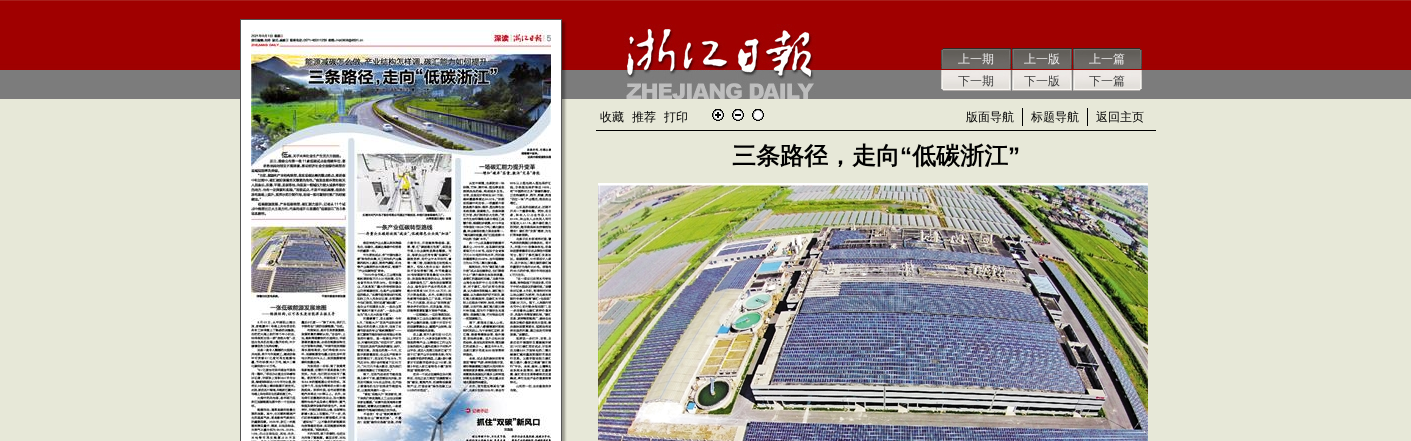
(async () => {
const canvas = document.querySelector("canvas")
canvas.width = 1411
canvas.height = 441
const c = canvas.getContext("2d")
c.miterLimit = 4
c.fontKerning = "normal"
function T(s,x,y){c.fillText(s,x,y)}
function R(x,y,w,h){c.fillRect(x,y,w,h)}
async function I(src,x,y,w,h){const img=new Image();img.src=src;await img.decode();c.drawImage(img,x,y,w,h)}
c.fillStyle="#e7e8d8"
R(0,0,1411,441)
await I("1.png",0,0,1411,99)
await I("5.png",216,0,980,99)
await I("2.png",241,20,326,421)
c.strokeStyle="#555"
c.strokeRect(240.5,19.5,321,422)
await I("3.png",251,30,300,411)
await I("4.png",562,19,5,80)
await I("6.png",624,24,192,75)
await I("7.png",941,48,70,21)
c.font="500 12px WenQuanYi Zen Hei"
c.fillStyle="#ebebeb"
T("上一期",958,63)
await I("8.png",941,70,70,21)
c.fillStyle="#3e3e3e"
T("下一期",958,85)
await I("9.png",1012,48,61,21)
c.fillStyle="#ebebeb"
T("上一版",1024,63)
await I("10.png",1012,70,60,21)
c.fillStyle="#3e3e3e"
T("下一版",1024,85)
await I("11.png",1073,48,69,21)
c.fillStyle="#ebebeb"
T("上一篇",1089,63)
await I("12.png",1073,70,69,21)
c.fillStyle="#3e3e3e"
T("下一篇",1089,85)
c.fillStyle="#000"
T("收藏",600,121)
T("推荐",632,121)
T("打印",664,121)
await I("13.png",712,109,12,12)
await I("14.png",732,109,12,12)
await I("15.png",752,109,12,12)
R(1022,108,1,18)
T("版面导航",966,121)
R(1087,108,1,18)
T("标题导航",1031,121)
T("返回主页",1096,121)
R(596,130,560,1)
c.font="bold 24px WenQuanYi Zen Hei"
T("三条路径，走向",732,164)
c.font="bold 24px Liberation Sans"
T("“",900,164)
c.font="bold 24px WenQuanYi Zen Hei"
T("低碳浙江",912,164)
c.font="bold 24px Liberation Sans"
T("”",1008,164)
await I("16.png",598,183,550,258)
})()
